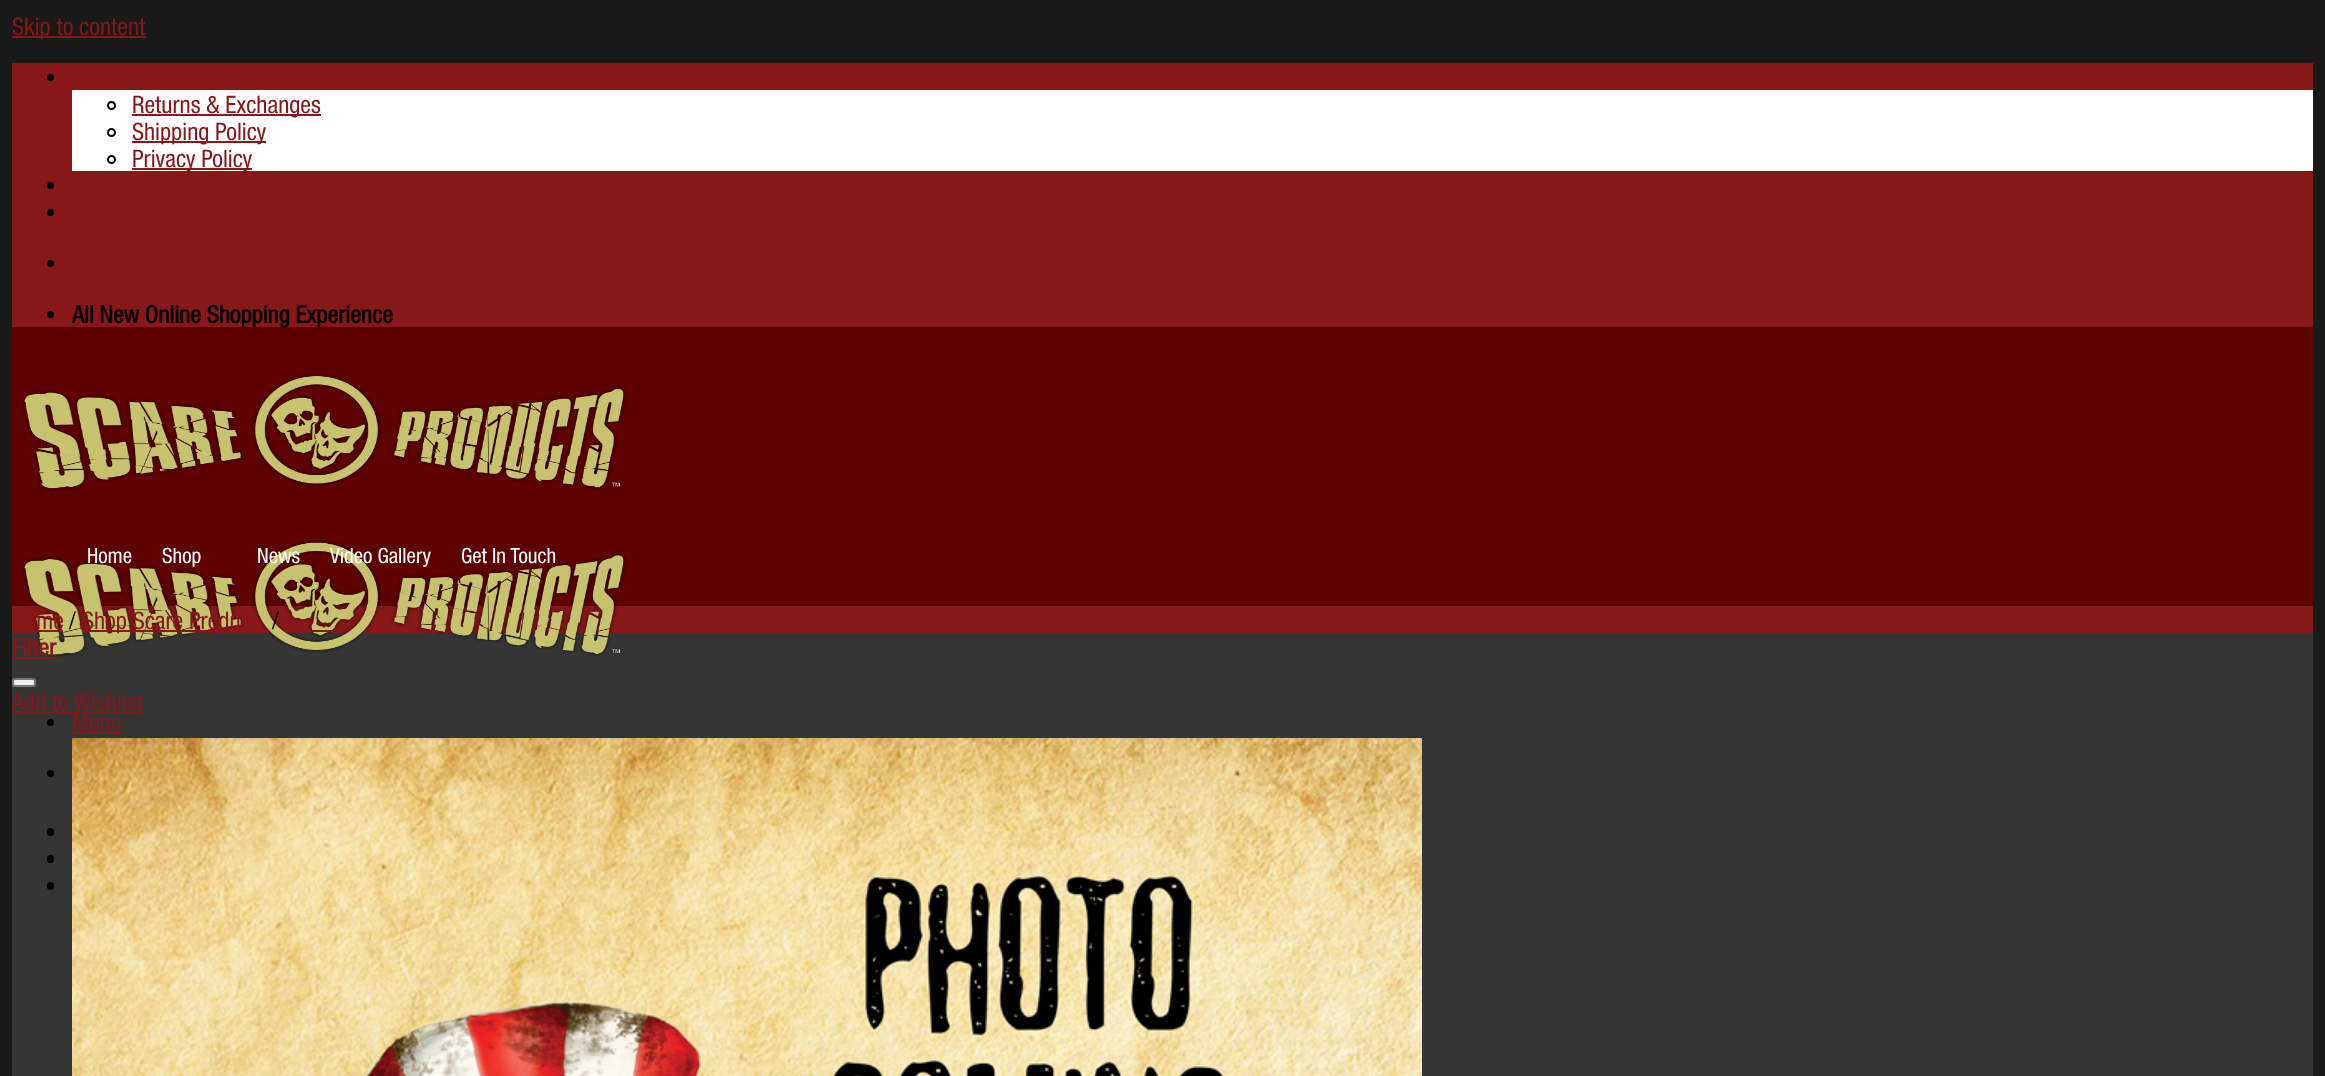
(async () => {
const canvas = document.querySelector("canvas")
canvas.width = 2325
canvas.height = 1076
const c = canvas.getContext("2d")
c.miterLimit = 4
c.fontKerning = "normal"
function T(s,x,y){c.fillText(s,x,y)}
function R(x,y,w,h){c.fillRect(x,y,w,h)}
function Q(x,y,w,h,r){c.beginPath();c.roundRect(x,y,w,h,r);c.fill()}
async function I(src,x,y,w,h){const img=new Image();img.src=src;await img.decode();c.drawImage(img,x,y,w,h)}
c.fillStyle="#191919"
R(0,0,2325,1076)
c.fillStyle="#871719"
R(12,36,134,2)
c.font="500 24px Helvetica Neue"
T("Skip to content",12,35)
c.fillStyle="#5d0101"
R(12,327,2301,279)
c.fillStyle="#871719"
R(12,63,2301,264)
c.fillStyle="#000"
c.beginPath()
c.arc(50.5,77.5,3.5,0,7)
c.fill()
c.fillStyle="#fff"
R(72,90,2241,81)
c.beginPath()
c.arc(111.5,105.5,3.5,0,7)
c.strokeStyle="#000"
c.lineWidth=2
c.stroke()
c.fillStyle="#871719"
R(132,114,189,2)
T("Returns & Exchanges",132,113)
c.beginPath()
c.arc(111.5,132.5,3.5,0,7)
c.stroke()
R(132,141,134,2)
T("Shipping Policy",132,140)
c.beginPath()
c.arc(111.5,159.5,3.5,0,7)
c.stroke()
R(132,168,120,2)
T("Privacy Policy",132,167)
c.fillStyle="#000"
c.beginPath()
c.arc(50.5,185.5,3.5,0,7)
c.fill()
c.beginPath()
c.arc(50.5,212.5,3.5,0,7)
c.fill()
c.beginPath()
c.arc(50.5,263.5,3.5,0,7)
c.fill()
c.beginPath()
c.arc(50.5,314.5,3.5,0,7)
c.fill()
c.font="bold 24px Helvetica Neue"
T("All New Online Shopping Experience",72,323)
c.fillStyle="#871719"
R(12,606,2301,27)
c.fillStyle="#353535"
R(12,633,2301,443)
await I("2.png",22,540,605,117)
c.font="500 21px Helvetica Neue"
c.fillStyle="#fff"
T("Home",87,563)
T("Shop",162,563)
T("News",257,563)
T("Video Gallery",330,563)
T("Get In Touch",461,563)
await I("1.png",22,373,605,118)
c.fillStyle="#000"
c.beginPath()
c.arc(50.5,722.5,3.5,0,7)
c.fill()
c.font="500 24px Helvetica Neue"
c.fillStyle="#871719"
T("Menu",72,731)
R(72,732,50,2)
c.fillStyle="#000"
c.beginPath()
c.arc(50.5,773.5,3.5,0,7)
c.fill()
Q(47,828,7,8,3.5)
Q(47,855,7,8,3.5)
Q(47,882,7,8,3.5)
c.fillStyle="#871719"
T("me",36,629)
R(35,630,28,2)
c.fillStyle="#000"
T("/",69,629)
c.fillStyle="#871719"
R(83,630,184,2)
T("Shop Scare Produ",82,629)
c.fillStyle="#000"
T("/",272,629)
c.fillStyle="#871719"
R(284,630,49,2)
c.font="bold 24px Helvetica Neue"
T("Filter",12,656)
R(12,657,44,2)
c.fillStyle="#efefef"
c.beginPath()
c.roundRect(13,679,22,7,2)
c.fill()
c.strokeStyle="#767676"
c.stroke()
c.font="500 24px Helvetica Neue"
c.fillStyle="#871719"
T("Add to Wishlist",12,710)
R(12,711,131,2)
await I("3.png",72,738,1350,338)
})()
